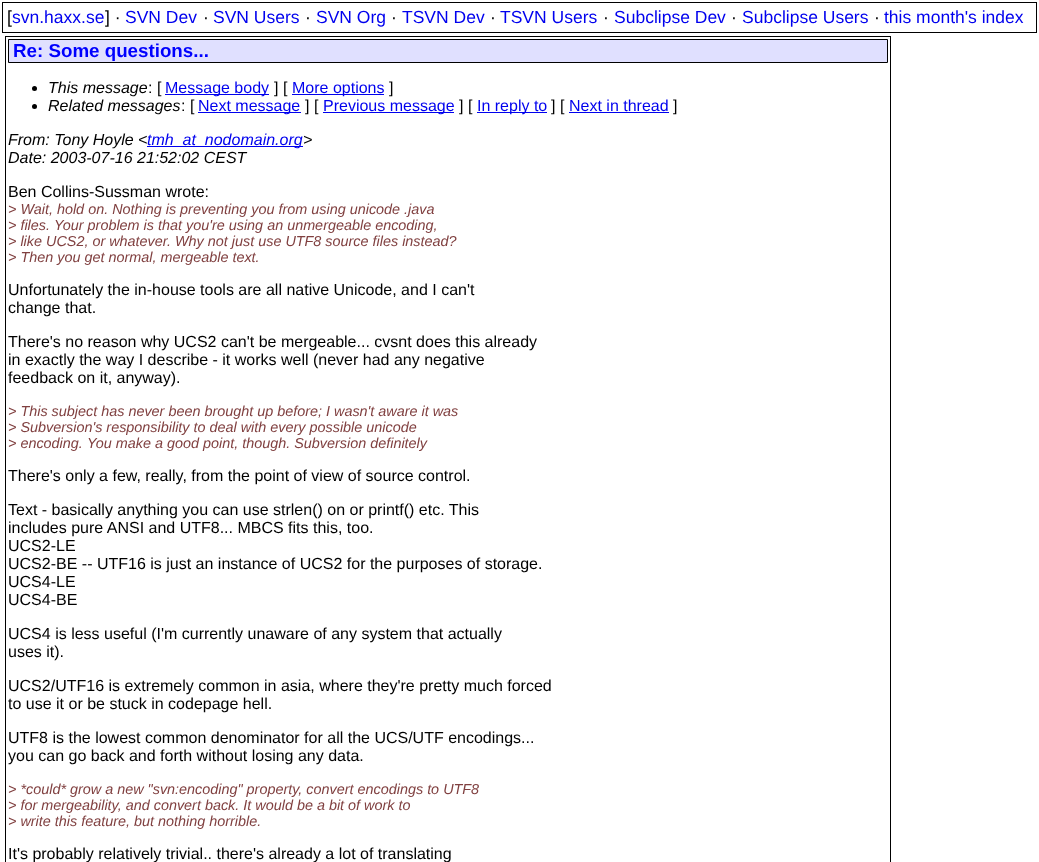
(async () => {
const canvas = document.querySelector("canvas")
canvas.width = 1039
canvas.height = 862
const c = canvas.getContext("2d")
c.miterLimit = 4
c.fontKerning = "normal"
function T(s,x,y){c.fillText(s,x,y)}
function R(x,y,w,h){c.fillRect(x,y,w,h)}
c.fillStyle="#fff"
R(0,0,1039,862)
c.strokeStyle="#000"
c.strokeRect(2.5,2.5,1034,30)
c.font="17.5px Liberation Sans"
c.fillStyle="#000"
T("[",7,23)
c.fillStyle="#00e"
T("svn.haxx.se",12,23)
c.fillStyle="#000"
T("] ·",105,23)
c.fillStyle="#00e"
T("SVN Dev",125,23)
c.fillStyle="#000"
T("·",203,23)
c.fillStyle="#00e"
T("SVN Users",213,23)
c.fillStyle="#000"
T("·",305,23)
c.fillStyle="#00e"
T("SVN Org",316,23)
c.fillStyle="#000"
T("·",391,23)
c.fillStyle="#00e"
T("TSVN Dev",402,23)
c.fillStyle="#000"
T("·",490,23)
c.fillStyle="#00e"
T("TSVN Users",500,23)
c.fillStyle="#000"
T("·",603,23)
c.fillStyle="#00e"
T("Subclipse Dev",614,23)
c.fillStyle="#000"
T("·",731,23)
c.fillStyle="#00e"
T("Subclipse Users",742,23)
c.fillStyle="#000"
T("·",874,23)
c.fillStyle="#00e"
T("this month's index",884,23)
c.strokeRect(5.5,36.5,885,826)
c.fillStyle="#e0e0ff"
c.beginPath()
c.rect(8.5,39.5,879,23)
c.fill()
c.stroke()
c.font="bold 18.75px Liberation Sans"
c.fillStyle="#00f"
T("Re: Some questions...",13,57)
c.fillStyle="#000"
c.beginPath()
c.arc(34.5,88.5,2.5,0,7)
c.fill()
c.font="italic 16px Liberation Sans"
T("This message",48,93)
c.font="16px Liberation Sans"
T(": [",148,93)
c.fillStyle="#00e"
R(165,94,104,1)
T("Message body",165,93)
c.fillStyle="#000"
T("] [",274,93)
c.fillStyle="#00e"
R(292,94,92,1)
T("More options",292,93)
c.fillStyle="#000"
T("]",389,93)
c.beginPath()
c.arc(34.5,106.5,2.5,0,7)
c.fill()
c.font="italic 16px Liberation Sans"
T("Related messages",48,111)
c.font="16px Liberation Sans"
T(": [",181,111)
c.fillStyle="#00e"
R(198,112,103,1)
T("Next message",198,111)
c.fillStyle="#000"
T("] [",305,111)
c.fillStyle="#00e"
R(323,112,131,1)
T("Previous message",323,111)
c.fillStyle="#000"
T("] [",459,111)
c.fillStyle="#00e"
R(477,112,70,1)
T("In reply to",477,111)
c.fillStyle="#000"
T("] [",551,111)
c.fillStyle="#00e"
T("Next in thread",569,111)
R(569,112,100,1)
c.fillStyle="#000"
T("]",673,111)
c.font="italic 16px Liberation Sans"
T("From: Tony Hoyle <",8,145)
c.fillStyle="#00e"
R(147,146,156,1)
T("tmh_at_nodomain.org",147,145)
c.fillStyle="#000"
T(">",303,145)
T("Date: 2003-07-16 21:52:02 CEST",8,163)
c.font="16px Liberation Sans"
T("Ben Collins-Sussman wrote:",8,197)
c.font="italic 14.4px Liberation Sans"
c.fillStyle="#804040"
T("> Wait, hold on. Nothing is preventing you from using unicode .java",8,214)
T("> files.",8,230)
T("Your problem is that you're using an unmergeable encoding,",54,230)
T("> like UCS2, or whatever. Why not just use UTF8 source files instead?",8,246)
T("> Then you get normal, mergeable text.",8,262)
c.font="16px Liberation Sans"
c.fillStyle="#000"
T("Unfortunately the in-house tools are all native Unicode, and I can't",8,295)
T("change that.",8,313)
T("There's no reason why UCS2 can't be mergeable... cvsnt does this already",8,347)
T("in exactly the way I describe - it works well (never had any negative",8,365)
T("feedback on it, anyway).",8,383)
c.font="italic 14.4px Liberation Sans"
c.fillStyle="#804040"
T("> This subject has never been brought up before; I wasn't aware it was",8,416)
T("> Subversion's responsibility to deal with every possible unicode",8,432)
T("> encoding.",8,448)
T("You make a good point, though. Subversion definitely",87,448)
c.font="16px Liberation Sans"
c.fillStyle="#000"
T("There's only a few, really, from the point of view of source control.",8,481)
T("Text - basically anything you can use strlen() on or printf() etc. This",8,515)
T("includes pure ANSI and UTF8... MBCS fits this, too.",8,533)
T("UCS2-LE",8,551)
T("UCS2-BE -- UTF16 is just an instance of UCS2 for the purposes of storage.",8,569)
T("UCS4-LE",8,587)
T("UCS4-BE",8,605)
T("UCS4 is less useful (I'm currently unaware of any system that actually",8,639)
T("uses it).",8,657)
T("UCS2/UTF16 is extremely common in asia, where they're pretty much forced",8,691)
T("to use it or be stuck in codepage hell.",8,709)
T("UTF8 is the lowest common denominator for all the UCS/UTF encodings...",8,743)
T("you can go back and forth without losing any data.",8,761)
c.font="italic 14.4px Liberation Sans"
c.fillStyle="#804040"
T("> *could* grow a new \"svn:encoding\" property, convert encodings to UTF8",8,794)
T("> for mergeability, and convert back. It would be a bit of work to",8,810)
T("> write this feature, but nothing horrible.",8,826)
c.font="16px Liberation Sans"
c.fillStyle="#000"
T("It's probably relatively trivial.. there's already a lot of translating",8,859)
})()
